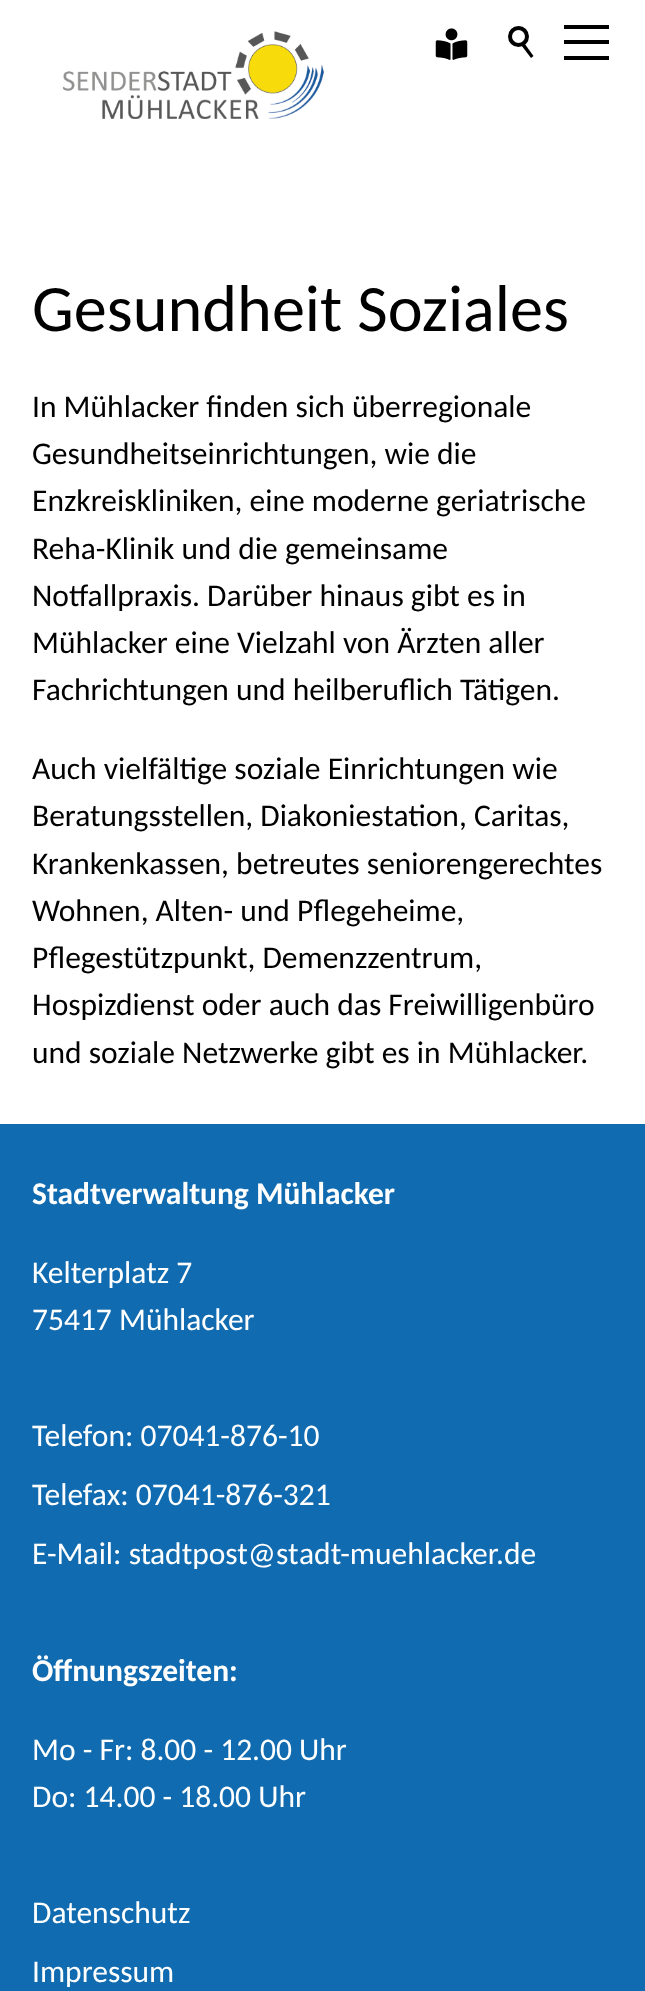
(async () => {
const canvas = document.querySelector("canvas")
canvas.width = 645
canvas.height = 1991
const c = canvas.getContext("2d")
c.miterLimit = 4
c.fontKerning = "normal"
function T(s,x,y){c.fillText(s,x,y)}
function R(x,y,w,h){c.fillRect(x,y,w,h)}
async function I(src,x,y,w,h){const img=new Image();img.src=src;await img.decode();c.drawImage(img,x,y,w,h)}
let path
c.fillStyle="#fff"
R(0,0,645,1991)
await I("1.png",63,31,261,88)
c.fillStyle="#000"
R(564,25,45,4)
R(564,40,45,4)
R(564,56,45,4)
await I("2.png",435,28,33,32)
c.beginPath()
c.arc(518.5,36.5,8.5,0,7)
c.strokeStyle="#000"
c.lineWidth=4
c.stroke()
path = new Path2D("M524.5 43.5l9 12.5l-2.5 2l-9.5-12.5z")
c.fill(path)
c.font="66.25px Carlito"
T("Gesundheit Soziales",32,331)
c.font="31.5px Carlito"
T("In Mühlacker finden sich überregionale",32,417)
T("Gesundheitseinrichtungen, wie die",32,464)
T("Enzkreiskliniken, eine moderne geriatrische",32,511)
T("Reha-Klinik und die gemeinsame",32,559)
T("Notfallpraxis. Darüber hinaus gibt es in",32,606)
T("Mühlacker eine Vielzahl von Ärzten aller",32,653)
T("Fachrichtungen und heilberuflich Tätigen.",32,700)
T("Auch vielfältige soziale Einrichtungen wie",32,779)
T("Beratungsstellen, Diakoniestation, Caritas,",32,826)
T("Krankenkassen, betreutes seniorengerechtes",32,874)
T("Wohnen, Alten- und Pflegeheime,",32,921)
T("Pflegestützpunkt, Demenzzentrum,",32,968)
T("Hospizdienst oder auch das Freiwilligenbüro",32,1015)
T("und soziale Netzwerke gibt es in Mühlacker.",32,1063)
c.fillStyle="#106bb0"
R(0,1124,645,867)
c.font="bold 31.5px Carlito"
c.fillStyle="#fff"
T("Stadtverwaltung Mühlacker",32,1204)
c.font="31.5px Carlito"
T("Kelterplatz 7",32,1283)
T("75417 Mühlacker",32,1330)
T("Telefon: 07041-876-10",32,1446)
T("Telefax: 07041-876-321",32,1505)
T("E-Mail: st",32,1564)
T("adtpost@st",150,1564)
T("adt-muehlack",299,1564)
T("er",472,1564)
T(".de",496,1564)
c.font="bold 31.5px Carlito"
T("Öffnungszeiten:",32,1681)
c.font="31.5px Carlito"
T("Mo - Fr: 8.00 - 12.00 Uhr",32,1760)
T("Do: 14.00 - 18.00 Uhr",32,1807)
T("Datenschutz",32,1923)
T("Impressum",32,1982)
})()
